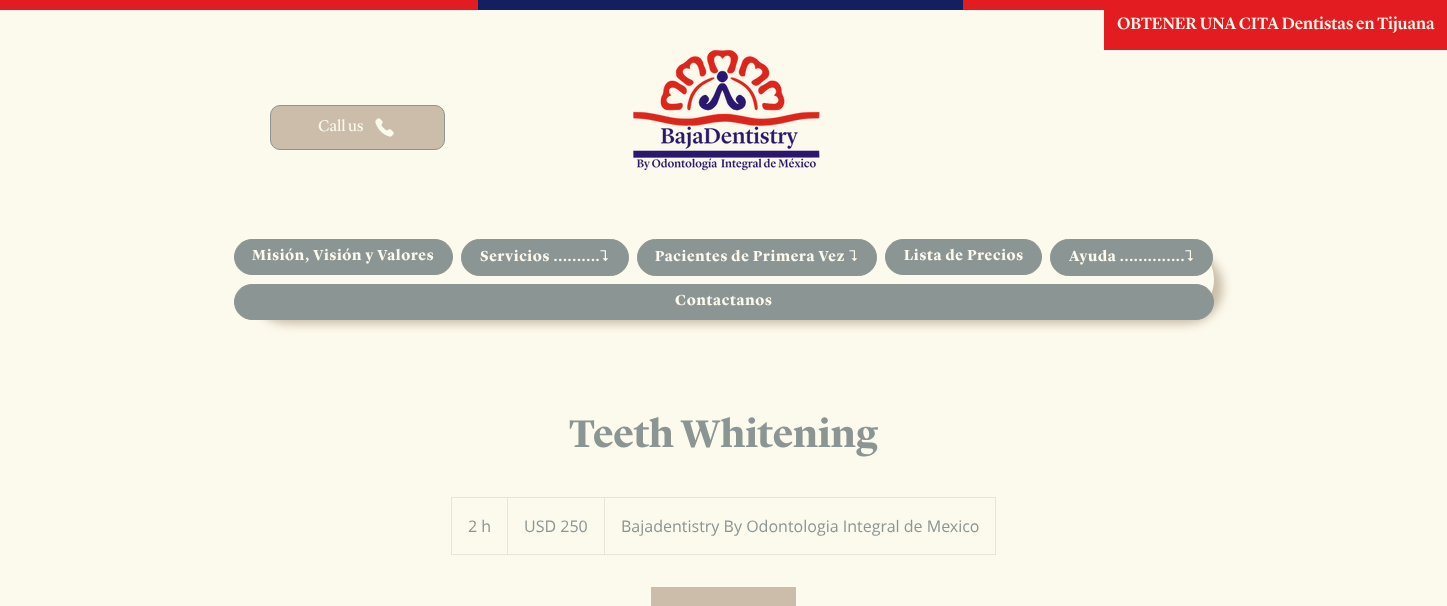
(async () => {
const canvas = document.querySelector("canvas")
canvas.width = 1447
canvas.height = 606
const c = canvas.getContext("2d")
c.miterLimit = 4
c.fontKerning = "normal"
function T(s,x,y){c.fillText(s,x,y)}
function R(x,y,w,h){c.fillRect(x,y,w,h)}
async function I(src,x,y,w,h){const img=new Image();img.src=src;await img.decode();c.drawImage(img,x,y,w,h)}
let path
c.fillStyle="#fcfaed"
R(0,0,1447,606)
c.fillStyle="#e21c21"
R(1104,0,343,50)
c.font="500 17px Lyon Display"
c.fillStyle="#fcfaed"
T("OBTENER UNA CITA Dentistas en Tijuana",1117,29)
c.fillStyle="#e21c21"
R(0,0,478,10)
c.fillStyle="#131f5e"
R(478,0,485,10)
c.fillStyle="#e21c21"
R(963,0,141,10)
c.fillStyle="#cbbda9"
c.beginPath()
c.roundRect(270.5,105.5,174,44,9.5)
c.fill()
c.strokeStyle="#8b9593"
c.stroke()
c.font="16px Lyon Display"
c.fillStyle="#fcfaed"
T("Call us",318,131)
await I("1.png",375,118,19,19)
await I("2.png",633,49,187,122)
c.save()
path = new Path2D("M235 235h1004v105h-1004zm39.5 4h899c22.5 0 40.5 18 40.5 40.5c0 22.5-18 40.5-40.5 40.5h-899c-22.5 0-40.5-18-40.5-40.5c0-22.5 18-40.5 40.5-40.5z")
c.clip(path,"evenodd")
c.fillStyle="#cbbda9"
c.filter="blur(5px)"
c.beginPath()
c.roundRect(251,251,972,73,36.5)
c.fill()
c.filter="none"
c.restore()
c.fillStyle="#8b9593"
c.beginPath()
c.roundRect(234.5,239.5,218,35,17.5)
c.fill()
c.stroke()
c.letterSpacing="0.75px"
c.font="bold 15px Lyon Display"
c.fillStyle="#fcfaed"
T("Misión, Visión y Valores",252,260)
c.fillStyle="#8b9593"
c.beginPath()
c.roundRect(461.5,239.5,167,36,18)
c.fill()
c.stroke()
c.fillStyle="#fcfaed"
T("Servicios ..........",480,261)
c.font="15px FreeSans"
T("⮧",600,261)
c.fillStyle="#8b9593"
c.beginPath()
c.roundRect(637.5,239.5,239,36,18)
c.fill()
c.stroke()
c.font="bold 15px Lyon Display"
c.fillStyle="#fcfaed"
T("Pacientes de Primera Vez",655,261)
c.font="15px FreeSans"
T("⮧",849,261)
c.fillStyle="#8b9593"
c.beginPath()
c.roundRect(885.5,239.5,156,35,17.5)
c.fill()
c.stroke()
c.font="bold 15px Lyon Display"
c.fillStyle="#fcfaed"
T("Lista de Precios",904,260)
c.fillStyle="#8b9593"
c.beginPath()
c.roundRect(1050.5,239.5,162,36,18)
c.fill()
c.stroke()
c.fillStyle="#fcfaed"
T("Ayuda ..............",1069,261)
c.font="15px FreeSans"
T("⮧",1185,261)
c.fillStyle="#8b9593"
c.beginPath()
c.roundRect(234.5,284.5,979,35,17.5)
c.fill()
c.stroke()
c.font="bold 15px Lyon Display"
c.fillStyle="#fcfaed"
T("Contactanos",675,305)
c.letterSpacing="0px"
c.font="bold 40px Lyon Display"
c.fillStyle="#8b9593"
T("Teeth Whitening",569,447)
c.strokeStyle="#e5e6db"
c.strokeRect(451.5,497.5,544,57)
c.font="16px Open Sans"
T("2 h",468,532)
c.fillStyle="#e5e6db"
path = new Path2D("M507 554v-57l1 1v56z")
c.fill(path)
c.fillStyle="#8b9593"
T("USD 250",524,532)
c.fillStyle="#e5e6db"
path = new Path2D("M604 554v-57l1 1v56z")
c.fill(path)
c.fillStyle="#8b9593"
T("Bajadentistry By Odontologia Integral de Mexico",621,532)
c.fillStyle="#cbbda9"
R(651,587,145,19)
})()
